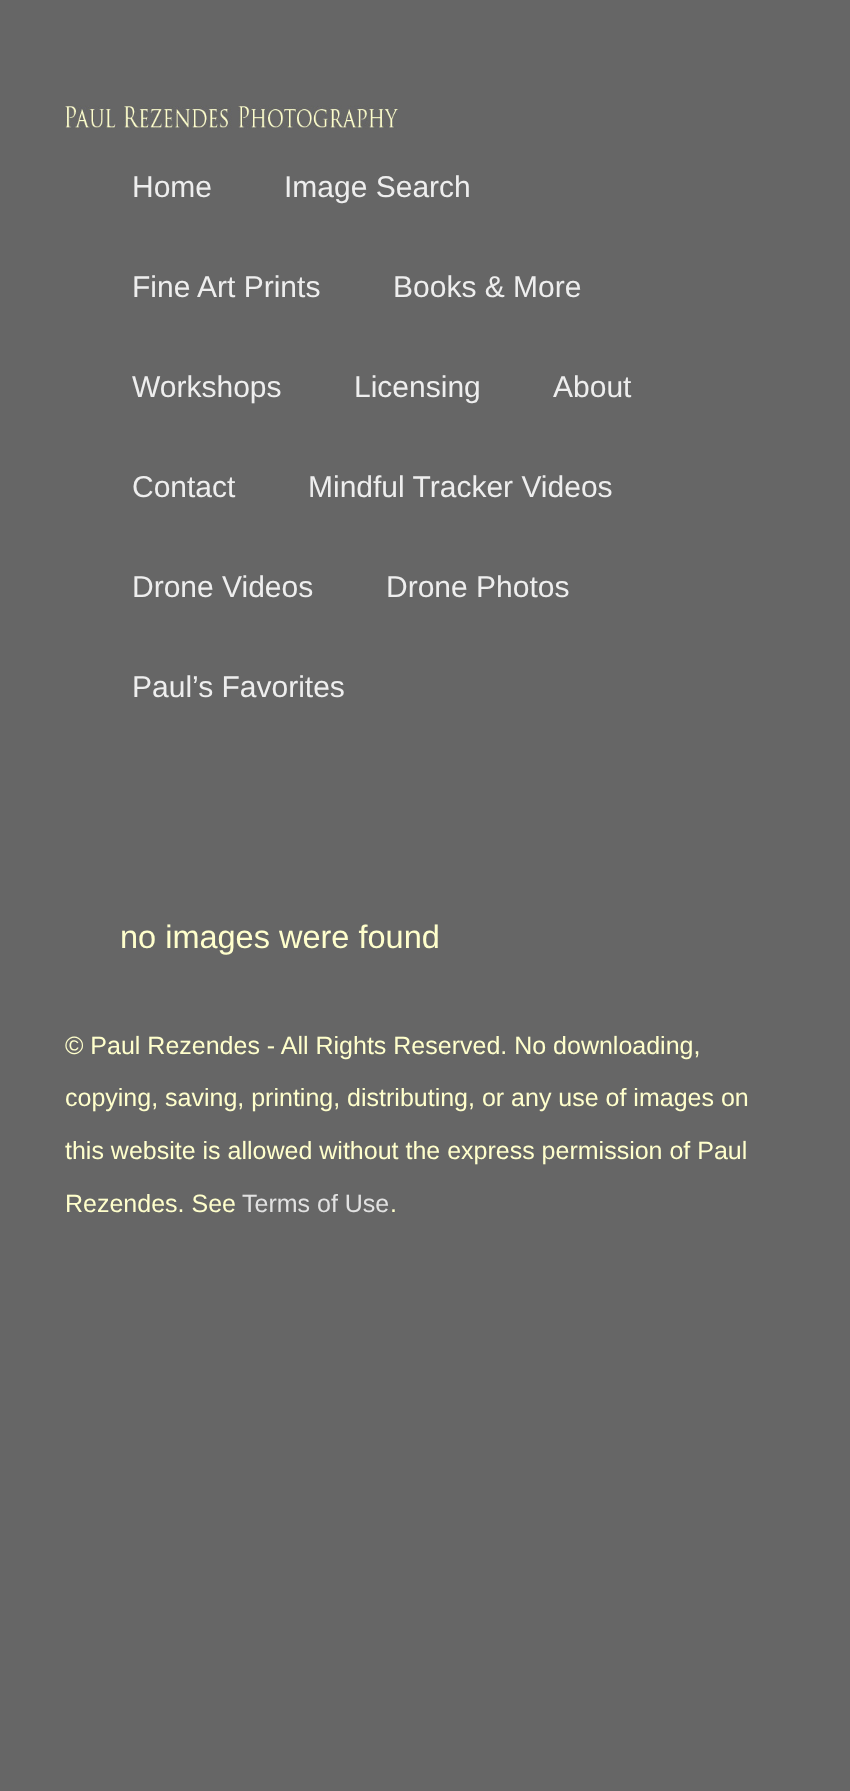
(async () => {
const canvas = document.querySelector("canvas")
canvas.width = 850
canvas.height = 1791
const c = canvas.getContext("2d")
c.miterLimit = 4
c.fontKerning = "normal"
function T(s,x,y){c.fillText(s,x,y)}
function R(x,y,w,h){c.fillRect(x,y,w,h)}
async function I(src,x,y,w,h){const img=new Image();img.src=src;await img.decode();c.drawImage(img,x,y,w,h)}
c.fillStyle="#666"
R(0,0,850,1791)
await I("1.png",65,105,334,24)
c.font="30px Liberation Sans"
c.fillStyle="#eee"
T("Home",132,197)
T("Image Search",284,197)
T("Fine Art Prints",132,297)
T("Books & More",393,297)
T("Workshops",132,397)
T("Licensing",354,397)
T("About",553,397)
T("Contact",132,497)
T("Mindful Tracker Videos",308,497)
T("Drone Videos",132,597)
T("Drone Photos",386,597)
T("Paul’s Favorites",132,697)
c.font="32.5px Liberation Sans"
c.fillStyle="#ffc"
T("no images were found",120,948)
c.font="25px Liberation Sans"
T("© Paul Rezendes - All Rights Reserved. No downloading,",65,1054)
T("copying, saving, printing, distributing, or any use of images on",65,1106)
T("this website is allowed without the express permission of Paul",65,1159)
T("Rezendes. See",65,1212)
c.fillStyle="#e2e2e2"
T("Terms of Use",242,1212)
c.fillStyle="#ffc"
T(".",390,1212)
})()
